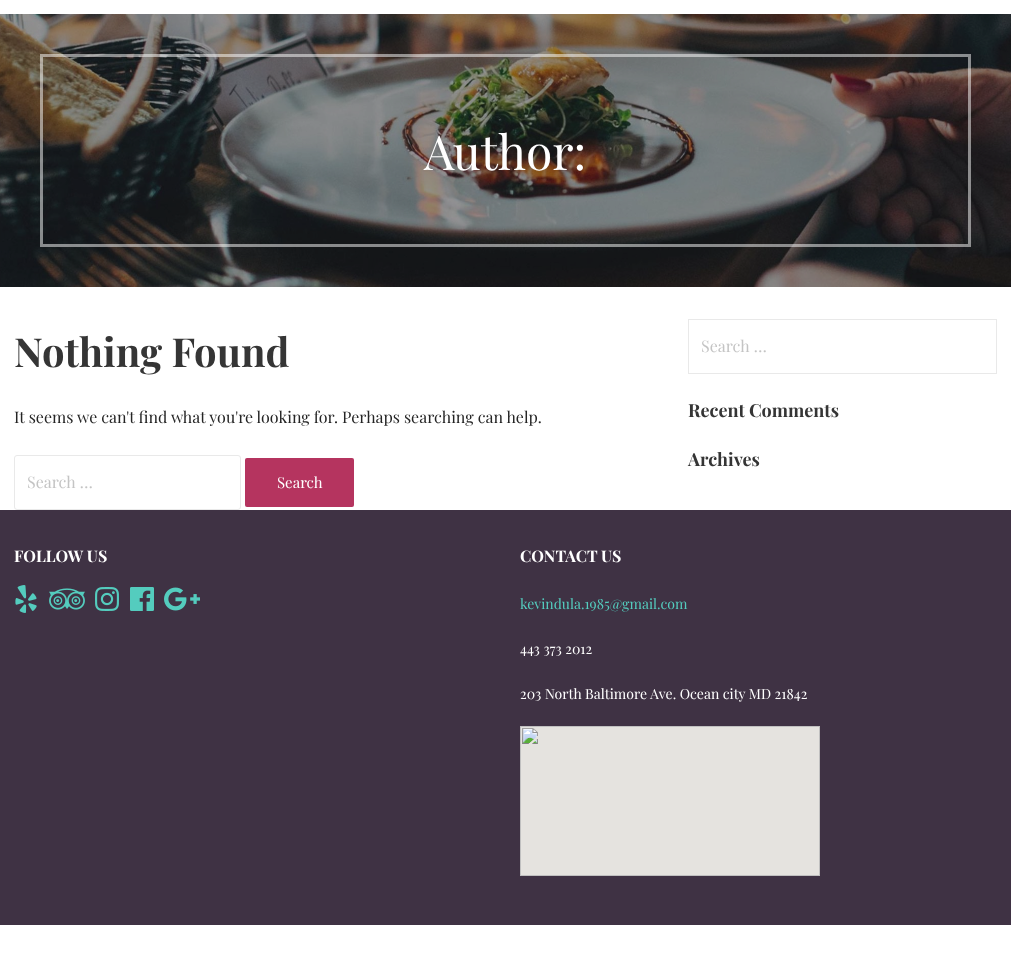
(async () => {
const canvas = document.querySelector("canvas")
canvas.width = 1011
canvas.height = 959
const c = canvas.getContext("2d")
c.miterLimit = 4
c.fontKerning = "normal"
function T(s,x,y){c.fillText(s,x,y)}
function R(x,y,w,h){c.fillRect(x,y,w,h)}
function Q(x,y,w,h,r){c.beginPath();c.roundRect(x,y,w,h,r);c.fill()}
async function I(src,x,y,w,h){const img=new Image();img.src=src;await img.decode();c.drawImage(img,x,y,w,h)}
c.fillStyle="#fff"
R(0,0,1011,959)
await I("1.png",0,14,1011,273)
c.strokeStyle="#ffffff80"
c.lineWidth=3
c.strokeRect(41.5,55.5,928,190)
c.font="48px Playfair Display"
T("Author:",424,170)
c.font="bold 40px Playfair Display"
c.fillStyle="#353535"
T("Nothing Found",14,367)
c.font="16px Playfair Display"
c.fillStyle="#252525"
T("It seems we can't find what you're looking for. Perhaps searching can help.",14,423)
c.beginPath()
c.roundRect(14.5,455.5,226,54,2.5)
c.strokeStyle="#e9e9e9"
c.lineWidth=1
c.stroke()
c.fillStyle="#c4c4c4"
T("Search …",27,488)
c.fillStyle="#b5345f"
Q(245,458,109,49,2)
c.font="15px Playfair Display"
c.fillStyle="#fff"
T("Search",277,488)
c.strokeRect(688.5,319.5,308,54)
c.font="16px Playfair Display"
c.fillStyle="#c4c4c4"
T("Search …",701,352)
c.font="bold 18px Playfair Display"
c.fillStyle="#353535"
T("Recent Comments",688,417)
T("Archives",688,466)
c.fillStyle="#3f3244"
R(0,510,1011,415)
c.font="bold 16px Playfair Display"
c.fillStyle="#fff"
T("FOLLOW US",14,562)
await I("2.png",15,585,22,28)
await I("3.png",49,588,36,22)
await I("4.png",95,587,24,24)
await I("5.png",130,587,24,24)
await I("6.png",164,587,36,24)
T("CONTACT US",520,562)
c.font="14px Playfair Display"
c.fillStyle="#54ccbe"
T("kevindula.1985@gmail.com",520,609)
c.fillStyle="#fff"
T("443 373 2012",520,654)
T("203 North Baltimore Ave. Ocean city MD 21842",520,699)
await I("7.png",520,726,300,150)
})()
